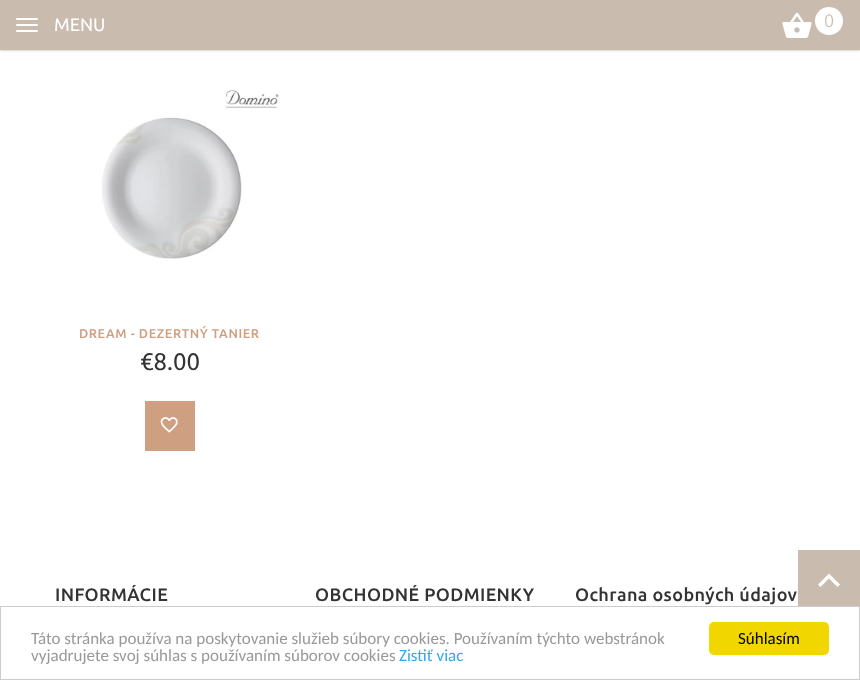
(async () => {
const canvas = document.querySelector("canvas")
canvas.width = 860
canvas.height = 680
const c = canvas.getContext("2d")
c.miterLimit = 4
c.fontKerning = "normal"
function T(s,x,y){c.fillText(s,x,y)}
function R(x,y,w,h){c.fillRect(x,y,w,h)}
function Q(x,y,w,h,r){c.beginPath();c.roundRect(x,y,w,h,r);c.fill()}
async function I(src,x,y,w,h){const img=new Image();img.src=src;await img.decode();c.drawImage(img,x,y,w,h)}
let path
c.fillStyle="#fff"
R(0,0,860,680)
c.fillStyle="#0000003d"
c.filter="blur(1px)"
c.beginPath()
c.rect(0,1,860,49)
c.fill()
c.filter="none"
c.fillStyle="#0000001f"
c.filter="blur(1.5px)"
c.beginPath()
c.rect(0,1,860,49)
c.fill()
c.filter="none"
c.fillStyle="#c9bbae"
R(0,0,860,50)
c.fillStyle="#fff"
Q(16,18,22,2,1)
c.font="18px Ubuntu"
T("MENU",54,31)
Q(16,24,22,2,1)
Q(16,30,22,2,1)
await I("1.png",782,12,30,26)
c.beginPath()
c.arc(829,21,14,0,7)
c.fill()
c.font="300 18px Ubuntu"
c.fillStyle="#c9bbae"
T("0",824,27)
await I("2.png",101,90,178,169)
c.letterSpacing="0.6px"
c.font="500 12.75px Ubuntu"
c.fillStyle="#cf9f82"
T("DREAM - DEZERTNÝ TANIER",79,338)
c.letterSpacing="0px"
c.font="24px Ubuntu"
c.fillStyle="#333"
T("€8.00",140,370)
c.fillStyle="#cf9f82"
R(145,401,50,50)
await I("3.png",160,417,18,16)
c.save()
c.beginPath()
c.rect(0,585,860,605)
c.clip()
c.letterSpacing="0.4px"
c.font="500 18px Ubuntu"
c.fillStyle="#333"
T("INFORMÁCIE",55,601)
T("OBCHODNÉ PODMIENKY",315,601)
c.restore()
c.letterSpacing="0.4px"
c.font="500 18px Ubuntu"
c.fillStyle="#333"
T("Ochrana osobných údajov",575,601)
c.fillStyle="#c9bbae"
R(798,550,62,56)
c.fillStyle="#fff"
path = new Path2D("M820.5 587l-2.5-2.5l11-11l11 11l-2.5 2.5l-8.5-8.5z")
c.fill(path)
c.strokeStyle="#ccc"
c.strokeRect(.5,606.5,859,73)
c.letterSpacing="0px"
c.font="17px Carlito"
c.fillStyle="#999"
T("Táto stránka používa na poskytovanie služieb súbory cookies. Používaním týchto webstránok",31,644)
T("vyjadrujete svoj súhlas s používaním súborov cookies",31,661)
c.fillStyle="#31a8f0"
T("Zistiť viac",399,661)
c.fillStyle="#f1d600"
Q(709,622,120,33,5)
c.fillStyle="#000"
T("Súhlasím",738,644)
})()
